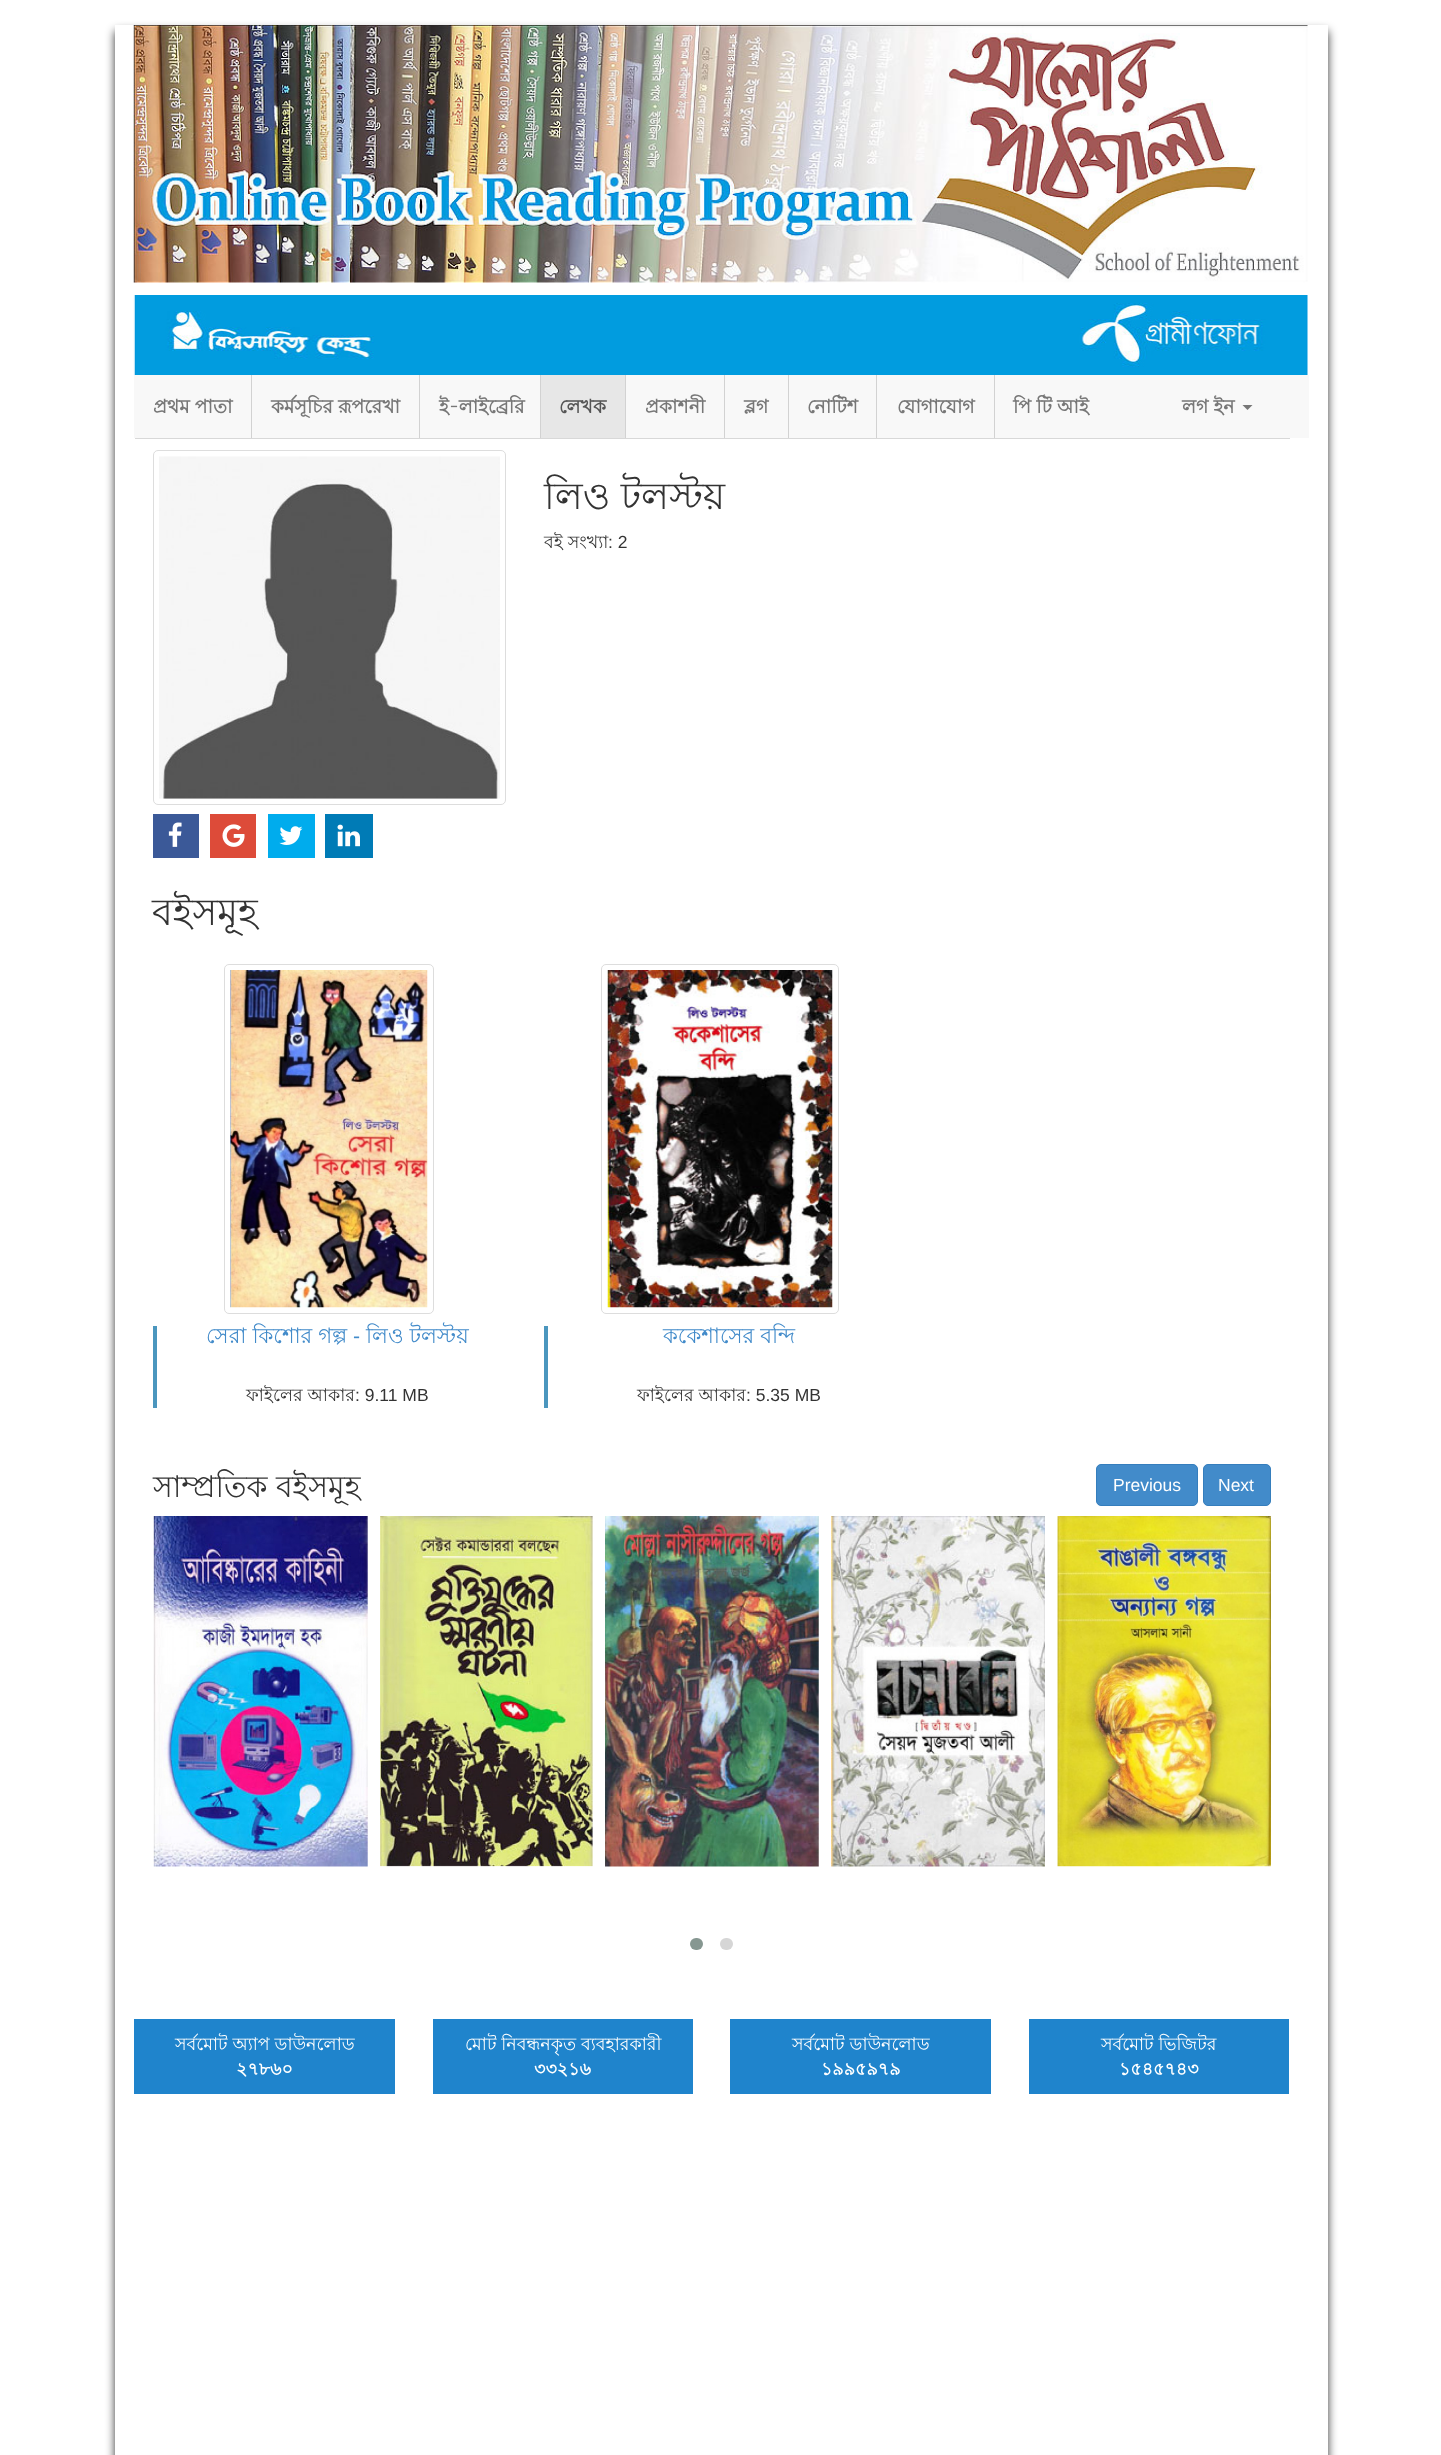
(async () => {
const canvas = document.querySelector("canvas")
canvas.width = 1441
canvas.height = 2455
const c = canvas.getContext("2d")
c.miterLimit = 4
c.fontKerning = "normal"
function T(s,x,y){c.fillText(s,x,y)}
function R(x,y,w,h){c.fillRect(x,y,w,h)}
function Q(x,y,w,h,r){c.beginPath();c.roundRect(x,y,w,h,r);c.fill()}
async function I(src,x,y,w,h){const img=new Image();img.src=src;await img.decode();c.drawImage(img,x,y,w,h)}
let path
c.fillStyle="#fff"
R(0,0,1441,2455)
c.save()
path = new Path2D("M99 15h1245v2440h-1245zm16 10h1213v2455h-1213z")
c.clip(path,"evenodd")
c.fillStyle="#000000cc"
c.filter="blur(5px)"
c.beginPath()
c.rect(115,31,1213,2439)
c.fill()
c.filter="none"
c.restore()
await I("1.png",133,25,1175,258)
await I("2.png",133,295,1175,80)
c.fillStyle="#f8f8f8"
R(134,375,1175,63)
c.fillStyle="#d8d8d8"
R(135,438,1155,1)
c.fillStyle="#d2d2d2"
R(251,375,1,63)
c.font="bold 18.75px Lohit Bengali"
c.fillStyle="#777"
T("প্রথম পাতা",153,413)
c.fillStyle="#d2d2d2"
R(419,375,1,63)
c.fillStyle="#777"
T("কর্মসূচির রূপরেখা",271,413)
c.fillStyle="#d2d2d2"
R(540,375,1,63)
c.fillStyle="#777"
T("ই-লাইব্রেরি",439,413)
c.fillStyle="#d2d2d2"
R(625,375,1,63)
c.fillStyle="#e7e7e7"
R(541,375,84,63)
c.fillStyle="#555"
T("লেখক",559,413)
c.fillStyle="#d2d2d2"
R(724,375,1,63)
c.fillStyle="#777"
T("প্রকাশনী",645,413)
c.fillStyle="#d2d2d2"
R(788,375,1,63)
c.fillStyle="#777"
T("ব্লগ",744,413)
c.fillStyle="#d2d2d2"
R(876,375,1,63)
c.fillStyle="#777"
T("নোটিশ",807,413)
c.fillStyle="#d2d2d2"
R(994,375,1,63)
c.fillStyle="#777"
T("যোগাযোগ",897,413)
T("পি টি আই",1013,413)
T("লগ ইন",1182,413)
path = new Path2D("M1242.5 405h10l-5 5z")
c.fill(path)
c.beginPath()
c.roundRect(153.5,450.5,352,354,4.5)
c.strokeStyle="#ddd"
c.stroke()
await I("3.png",159,456,341,343)
c.fillStyle="#3b5998"
R(153,814,46,44)
await I("4.png",168,822,14,25)
c.fillStyle="#dd4b39"
R(210,814,46,44)
await I("5.png",222,824,23,23)
c.fillStyle="#00aced"
R(268,814,47,44)
await I("6.png",279,826,24,19)
c.fillStyle="#007bb6"
R(325,814,48,44)
await I("7.png",337,824,23,23)
c.font="37.5px Lohit Bengali"
c.fillStyle="#333"
T("লিও টলস্টয়",544,509)
c.font="17.5px Lohit Bengali"
T("বই সংখ্যা",544,548)
c.font="17.5px Liberation Sans"
T(": 2",608,548)
c.font="37.5px Lohit Bengali"
T("বইসমূহ",152,925)
c.beginPath()
c.roundRect(224.5,964.5,209,349,4.5)
c.stroke()
await I("8.png",230,970,198,338)
c.fillStyle="#4b96be"
R(153,1326,4,82)
c.font="21.25px Lohit Bengali"
c.fillStyle="#428bca"
T("সেরা কিশোর গল্প",206,1343)
c.font="21.25px Liberation Sans"
T("-",353,1343)
c.font="21.25px Lohit Bengali"
T("লিও টলস্টয়",366,1343)
c.font="17.5px Lohit Bengali"
c.fillStyle="#333"
T("ফাইলের আকার",246,1401)
c.font="17.5px Liberation Sans"
T(": 9.11 MB",355,1401)
c.beginPath()
c.roundRect(601.5,964.5,237,349,4.5)
c.stroke()
await I("9.png",607,970,226,338)
c.fillStyle="#4b96be"
R(544,1326,4,82)
c.font="21.25px Lohit Bengali"
c.fillStyle="#428bca"
T("ককেশাসের বন্দি",663,1343)
c.font="17.5px Lohit Bengali"
c.fillStyle="#333"
T("ফাইলের আকার",637,1401)
c.font="17.5px Liberation Sans"
T(": 5.35 MB",746,1401)
c.font="30px Lohit Bengali"
T("সাম্প্রতিক বইসমূহ",153,1497)
c.fillStyle="#428bca"
c.beginPath()
c.roundRect(1096.5,1464.5,101,41,4.5)
c.fill()
c.strokeStyle="#357ebd"
c.stroke()
c.font="17.5px Liberation Sans"
c.fillStyle="#fff"
T("Previous",1113,1491)
c.fillStyle="#428bca"
c.beginPath()
c.roundRect(1203.5,1464.5,67,41,4.5)
c.fill()
c.stroke()
c.fillStyle="#fff"
T("Next",1218,1491)
await I("10.png",153,1516,215,351)
await I("11.png",380,1516,213,351)
await I("12.png",605,1516,214,351)
await I("13.png",831,1516,214,351)
await I("14.png",1057,1516,214,351)
c.fillStyle="#869791"
Q(690,1938,13,12,6)
c.fillStyle="#d6d6d6"
Q(720,1938,13,12,6)
c.fillStyle="#1f84cc"
R(134,2019,261,75)
c.font="17.5px Lohit Bengali"
c.fillStyle="#fff"
T("সর্বমোট অ্যাপ ডাউনলোড",175,2050)
c.font="bold 17.5px Lohit Bengali"
T("২৭৮৬০",236,2075)
c.fillStyle="#1f84cc"
R(433,2019,260,75)
c.font="17.5px Lohit Bengali"
c.fillStyle="#fff"
T("মোট নিবন্ধনকৃত ব্যবহারকারী",465,2050)
c.font="bold 17.5px Lohit Bengali"
T("৩৩২১৬",534,2075)
c.fillStyle="#1f84cc"
R(730,2019,261,75)
c.font="17.5px Lohit Bengali"
c.fillStyle="#fff"
T("সর্বমোট ডাউনলোড",792,2050)
c.font="bold 17.5px Lohit Bengali"
T("১৯৯৫৯৭৯",821,2075)
c.fillStyle="#1f84cc"
R(1029,2019,260,75)
c.font="17.5px Lohit Bengali"
c.fillStyle="#fff"
T("সর্বমোট ভিজিটর",1101,2050)
c.font="bold 17.5px Lohit Bengali"
T("১৫৪৫৭৪৩",1119,2075)
})()
